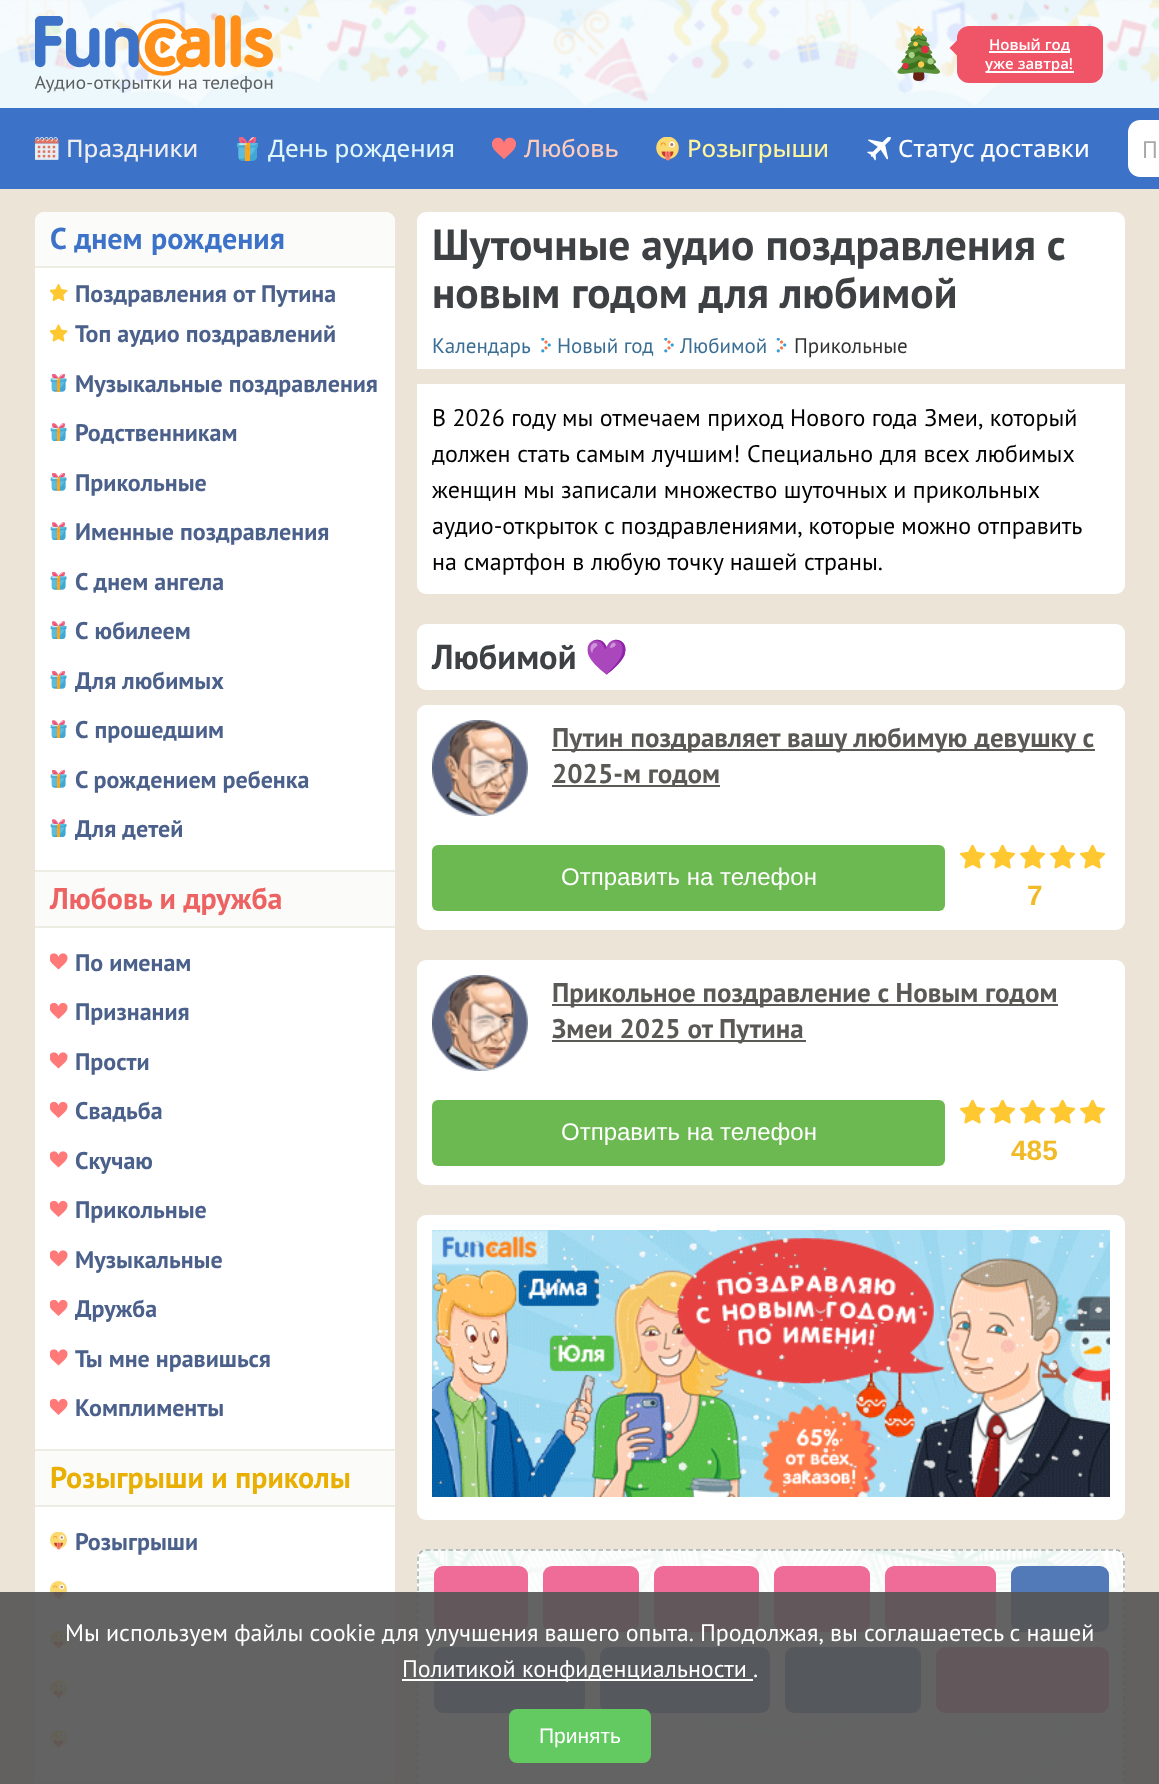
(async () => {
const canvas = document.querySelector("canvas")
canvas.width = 1159
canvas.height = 1784
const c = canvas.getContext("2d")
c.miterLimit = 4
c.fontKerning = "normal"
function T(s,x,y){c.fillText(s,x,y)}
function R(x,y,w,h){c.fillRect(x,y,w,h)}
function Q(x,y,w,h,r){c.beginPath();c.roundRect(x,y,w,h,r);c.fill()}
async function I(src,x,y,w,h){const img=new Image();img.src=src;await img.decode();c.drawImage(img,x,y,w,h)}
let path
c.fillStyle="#ece4d7"
R(0,0,1159,1784)
await I("1.png",0,0,1159,108)
await I("2.png",35,15,238,78)
await I("3.png",897,26,43,55)
c.fillStyle="#f05467"
Q(957,26,146,57,12)
path = new Path2D("M958.5 39v18l-9-9z")
c.fill(path)
c.fillStyle="#fff"
R(989,51,81,2)
c.font="600 15px Open Sans"
T("Новый год",989,50)
R(986,71,88,2)
T("уже завтра!",985,69)
c.fillStyle="#3c72c8"
R(0,108,1159,81)
await I("4.png",35,137,24,23)
c.font="500 24px Open Sans"
c.fillStyle="#eee"
T("Праздники",66,157)
await I("5.png",237,137,21,24)
c.fillStyle="#e0f7fa"
T("День рождения",268,157)
await I("6.png",492,137,24,23)
c.fillStyle="#ffccbc"
T("Любовь",524,157)
await I("7.png",656,137,23,24)
c.fillStyle="#fff59d"
T("Розыгрыши",687,157)
await I("8.png",867,137,24,24)
c.fillStyle="#fff"
T("Статус доставки",898,157)
path = new Path2D("M1140 120h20v57h-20c-6.5 0-12-5.5-12-12v-33c0-6.5 5.5-12 12-12z")
c.fill(path)
c.font="24px PT Sans"
c.fillStyle="#a9a9a9"
T("П",1142,158)
c.fillStyle="#fff"
Q(35,212,360,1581,9)
c.fillStyle="#fbfbf9"
c.beginPath()
c.roundRect(35,212,360,55,[9,9,0,0])
c.fill()
c.fillStyle="#edede3"
R(35,266,360,2)
c.wordSpacing="1px"
c.font="bold 30px PT Sans"
c.fillStyle="#3c72c8"
T("С днем рождения",50,249)
await I("9.png",50,284,18,18)
c.wordSpacing="0px"
c.font="bold 24px PT Sans"
c.fillStyle="#4b618b"
T("Поздравления от Путина",75,302)
await I("10.png",50,324,18,18)
T("Топ аудио поздравлений",75,342)
await I("11.png",50,374,17,18)
T("Музыкальные поздравления",75,392)
await I("12.png",50,423,17,18)
T("Родственникам",75,441)
await I("11.png",50,473,17,18)
T("Прикольные",75,491)
await I("12.png",50,522,17,18)
T("Именные поздравления",75,540)
await I("11.png",50,572,17,18)
T("С днем ангела",75,590)
await I("12.png",50,621,17,18)
c.wordSpacing="1px"
T("С юбилеем",75,639)
await I("11.png",50,671,17,18)
c.wordSpacing="0px"
T("Для любимых",75,689)
await I("12.png",50,720,17,18)
c.wordSpacing="1px"
T("С прошедшим",75,738)
await I("11.png",50,770,17,18)
c.wordSpacing="0px"
T("С рождением ребенка",75,788)
await I("12.png",50,819,17,18)
T("Для детей",75,837)
c.fillStyle="#fbfbf9"
R(35,872,360,54)
c.fillStyle="#edede3"
R(35,870,360,2)
R(35,926,360,2)
c.font="bold 30px PT Sans"
c.fillStyle="#ed6363"
T("Любовь и дружба",50,909)
await I("13.png",50,953,18,17)
c.font="bold 24px PT Sans"
c.fillStyle="#4b618b"
T("По именам",75,971)
await I("14.png",50,1002,18,17)
T("Признания",75,1020)
await I("13.png",50,1052,18,17)
T("Прости",75,1070)
await I("14.png",50,1101,18,17)
T("Свадьба",75,1119)
await I("13.png",50,1151,18,17)
T("Скучаю",75,1169)
await I("14.png",50,1200,18,17)
T("Прикольные",75,1218)
await I("13.png",50,1250,18,17)
T("Музыкальные",75,1268)
await I("14.png",50,1299,18,17)
T("Дружба",75,1317)
await I("13.png",50,1349,18,17)
T("Ты мне нравишься",75,1367)
await I("14.png",50,1398,18,17)
T("Комплименты",75,1416)
c.fillStyle="#fbfbf9"
R(35,1451,360,54)
c.fillStyle="#edede3"
R(35,1449,360,2)
R(35,1505,360,2)
c.font="bold 30px PT Sans"
c.fillStyle="#e9b003"
T("Розыгрыши и приколы",50,1488)
await I("15.png",50,1532,17,18)
c.font="bold 24px PT Sans"
c.fillStyle="#4b618b"
T("Розыгрыши",75,1550)
await I("16.png",50,1581,17,18)
await I("15.png",50,1631,17,18)
await I("16.png",50,1680,17,18)
await I("15.png",50,1730,17,18)
c.fillStyle="#fbfbf9"
R(35,1783,360,1)
c.fillStyle="#edede3"
R(35,1781,360,2)
c.fillStyle="#fff"
c.beginPath()
c.roundRect(417,212,708,111,[9,9,0,0])
c.fill()
c.font="bold 43.5px PT Sans"
c.fillStyle="#3e4143"
T("Шуточные аудио поздравления с",432,260)
T("новым годом для любимой",432,308)
c.fillStyle="#fff"
R(417,323,708,46)
c.font="21px PT Sans"
c.fillStyle="#3b6e94"
T("Календарь",432,353)
await I("17.png",541,338,10,15)
T("Новый год",557,353)
await I("17.png",664,338,10,15)
T("Любимой",680,353)
await I("18.png",776,338,11,15)
c.fillStyle="#333"
T("Прикольные",794,353)
c.fillStyle="#fff"
c.beginPath()
c.roundRect(417,384,708,210,[0,0,9,9])
c.fill()
c.font="24px PT Sans"
c.fillStyle="#000"
T("В 2026 году мы отмечаем приход Нового года Змеи, который",432,426)
c.wordSpacing="0.25px"
T("должен стать самым лучшим! Специально для всех любимых",432,462)
c.wordSpacing="0px"
T("женщин мы записали множество шуточных и прикольных",432,498)
c.wordSpacing="-0.5px"
T("аудио-открыток с поздравлениями, которые можно отправить",432,534)
c.wordSpacing="0.25px"
T("на смартфон в любую точку нашей страны.",432,570)
c.fillStyle="#fff"
Q(417,624,708,66,9)
c.wordSpacing="0px"
c.font="bold 34.5px PT Sans"
c.fillStyle="#3e4143"
T("Любимой",432,669)
c.font="bold 34.5px Noto Color Emoji"
T("💜",585,669)
c.fillStyle="#fff"
Q(417,705,708,225,9)
await I("19.png",432,720,96,96)
c.fillStyle="#5a5956"
R(552,749,543,2)
c.wordSpacing="0.5px"
c.font="bold 27px PT Sans"
T("Путин поздравляет вашу любимую девушку с",552,747)
R(552,785,168,2)
c.wordSpacing="0px"
T("2025-м годом",552,783)
c.fillStyle="#6bb950"
Q(432,845,513,66,6)
c.font="24px Liberation Sans"
c.fillStyle="#fff"
T("Отправить на телефон",561,885)
await I("20.png",960,845,26,24)
await I("20.png",990,845,26,24)
await I("20.png",1020,845,26,24)
await I("20.png",1050,845,26,24)
await I("20.png",1080,845,26,24)
c.font="bold 28px Liberation Sans"
c.fillStyle="#f1bb27"
T("7",1027,905)
c.fillStyle="#fff"
Q(417,960,708,225,9)
await I("19.png",432,975,96,96)
c.fillStyle="#5a5956"
R(552,1004,506,2)
c.font="bold 27px PT Sans"
T("Прикольное поздравление с Новым годом",552,1002)
R(552,1040,254,2)
T("Змеи 2025 от Путина",552,1038)
c.fillStyle="#6bb950"
Q(432,1100,513,66,6)
c.font="24px Liberation Sans"
c.fillStyle="#fff"
T("Отправить на телефон",561,1140)
await I("20.png",960,1100,26,24)
await I("20.png",990,1100,26,24)
await I("20.png",1020,1100,26,24)
await I("20.png",1050,1100,26,24)
await I("20.png",1080,1100,26,24)
c.font="bold 28px Liberation Sans"
c.fillStyle="#f1bb27"
T("485",1011,1160)
c.fillStyle="#fff"
Q(417,1215,708,305,9)
await I("21.png",432,1230,678,267)
await I("22.png",417,1549,708,235)
path = new Path2D("M426 1550h690c4.5 0 8 4 8 8.5v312c0 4.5-3.5 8.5-8 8.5h-690c-4.5 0-8-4-8-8.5v-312c0-4.5 3.5-8.5 8-8.5z")
c.strokeStyle="#a6b1ad"
c.lineWidth=1.5
c.setLineDash([4.5,3])
c.stroke(path)
c.fillStyle="#ef6b98"
Q(434,1566,94,66,9)
Q(543,1566,96,66,9)
Q(654,1566,105,66,9)
Q(774,1566,96,66,9)
Q(885,1566,111,66,9)
c.fillStyle="#527ab9"
Q(1011,1566,98,66,9)
Q(434,1647,151,66,9)
Q(600,1647,170,66,9)
Q(785,1647,136,66,9)
c.fillStyle="#ef6b98"
Q(936,1647,173,66,9)
c.fillStyle="#565656eb"
R(0,1592,1159,192)
c.wordSpacing="-0.25px"
c.font="24px PT Sans"
c.fillStyle="#fff"
T("Мы используем файлы cookie для улучшения вашего опыта. Продолжая, вы соглашаетесь с нашей",65,1641)
R(402,1679,351,2)
c.wordSpacing="0px"
T("Политикой конфиденциальности",402,1677)
T(".",753,1677)
c.fillStyle="#63ca61"
Q(509,1709,142,54,8)
c.font="21px Liberation Sans"
c.fillStyle="#fff"
T("Принять",539,1743)
})()
